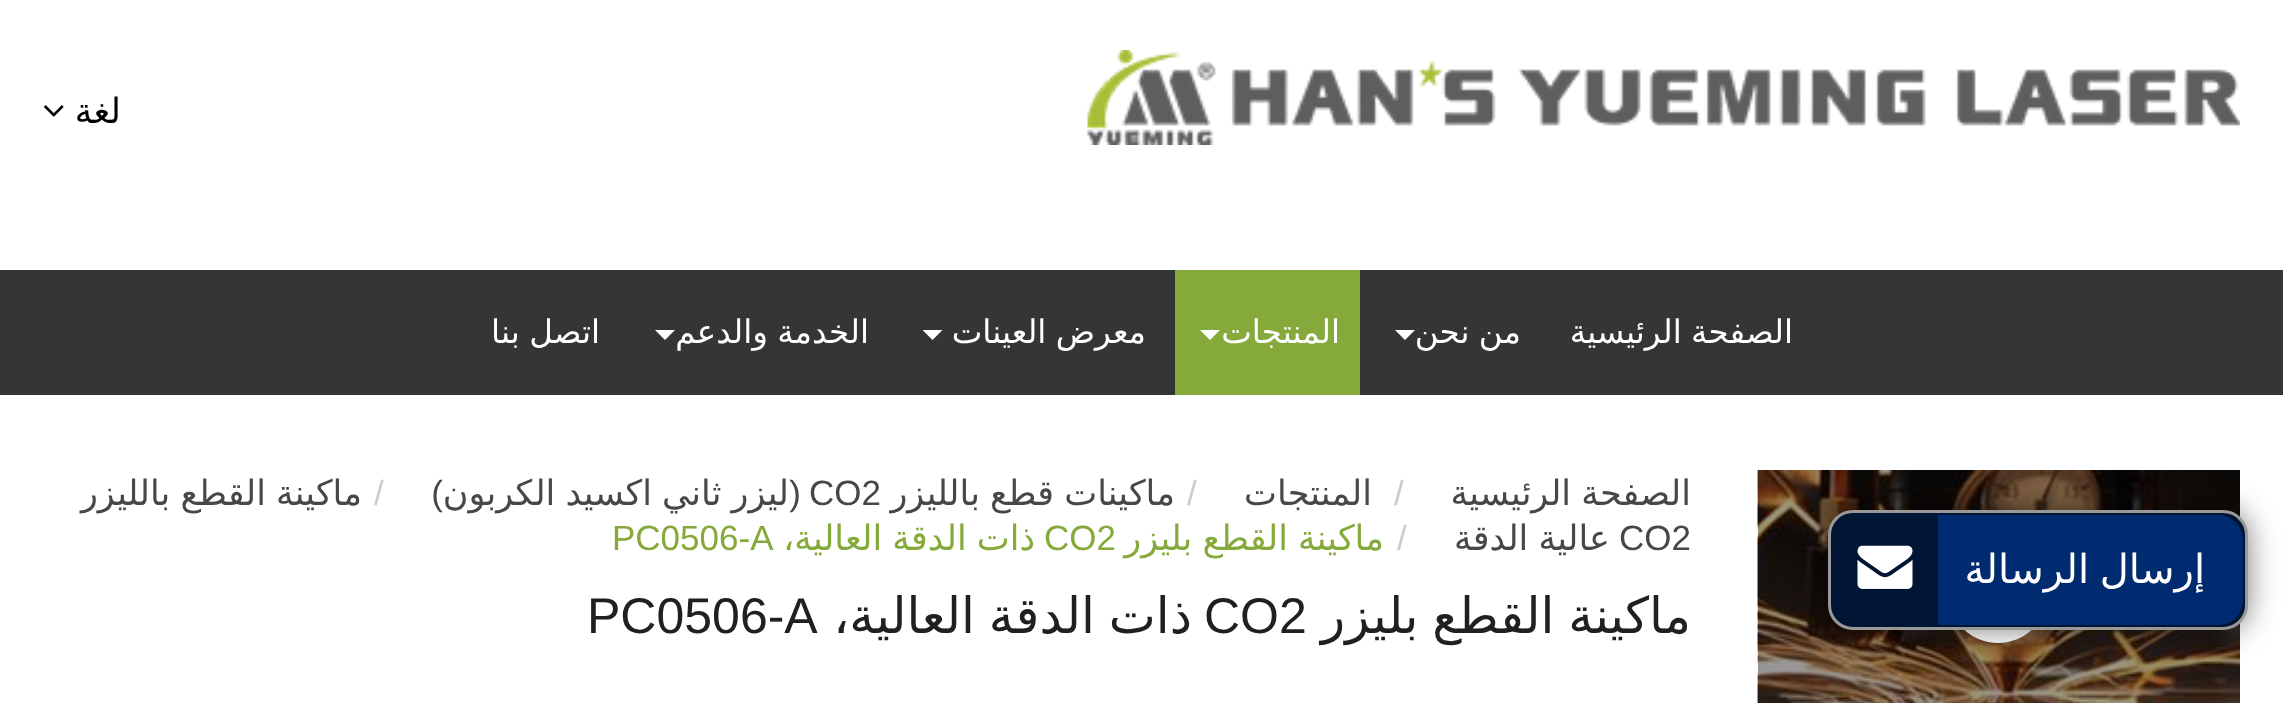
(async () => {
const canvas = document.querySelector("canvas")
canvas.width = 2283
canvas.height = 703
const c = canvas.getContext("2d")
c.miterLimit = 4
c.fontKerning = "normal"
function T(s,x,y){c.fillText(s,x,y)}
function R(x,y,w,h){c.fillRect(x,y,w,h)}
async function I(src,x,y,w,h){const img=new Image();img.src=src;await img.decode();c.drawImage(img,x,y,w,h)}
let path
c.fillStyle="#fff"
R(0,0,2283,703)
await I("1.png",1087,50,1153,95)
c.direction="rtl"
c.font="35px DejaVu Sans"
c.fillStyle="#000"
T("لغة",121,123)
await I("2.png",44,105,20,12)
c.fillStyle="#343536"
R(0,270,2283,125)
c.wordSpacing="-1px"
c.font="32.5px DejaVu Sans"
c.fillStyle="#fff"
T("الصفحة الرئيسية",1793,343)
T("من نحن",1521,343)
path = new Path2D("M1395 330h20l-10 10z")
c.fill(path)
c.fillStyle="#85aa3b"
R(1175,270,185,125)
c.wordSpacing="0px"
c.fillStyle="#fff"
T("المنتجات",1340,343)
path = new Path2D("M1200 330h20l-10 10z")
c.fill(path)
c.wordSpacing="-1px"
T("معرض العينات",1146,343)
path = new Path2D("M922.5 330h20l-10 10z")
c.fill(path)
T("الخدمة والدعم",869,343)
path = new Path2D("M655 330h20l-10 10z")
c.fill(path)
T("اتصل بنا",600,343)
await I("4.png",1757,470,483,233)
c.beginPath()
c.arc(1998,593,43.5,0,7)
c.strokeStyle="#fff"
c.lineWidth=13
c.stroke()
c.fillStyle="#00000080"
c.filter="blur(15px)"
c.beginPath()
c.roundRect(1828,510,420,120,25)
c.fill()
c.filter="none"
c.fillStyle="#001434"
c.beginPath()
c.roundRect(1829.5,511.5,417,117,23.5)
c.fill()
c.strokeStyle="#999"
c.lineWidth=3
c.stroke()
c.fillStyle="#002b70"
c.beginPath()
c.roundRect(1938,515,305,110,[0,25,25,0])
c.fill()
c.wordSpacing="-2px"
c.font="40px DejaVu Sans"
c.fillStyle="#fff"
T("إرسال الرسالة",2205,583)
await I("3.png",1857,545,56,44)
c.wordSpacing="-1px"
c.font="35px DejaVu Sans"
c.fillStyle="#474747"
T("الصفحة الرئيسية",1691,505)
c.wordSpacing="0px"
c.direction="ltr"
c.font="35px Liberation Sans"
c.fillStyle="#ccc"
T("/",1394,505)
c.direction="rtl"
c.font="35px DejaVu Sans"
c.fillStyle="#474747"
T("المنتجات",1372,505)
c.direction="ltr"
c.font="35px Liberation Sans"
c.fillStyle="#ccc"
T("/",1187,505)
c.wordSpacing="-1px"
c.direction="rtl"
c.font="35px DejaVu Sans"
c.fillStyle="#474747"
T("ماكينات قطع بالليزر",1175,505)
c.wordSpacing="0px"
c.direction="ltr"
c.font="35px Liberation Sans"
T("CO2",809,505)
c.direction="rtl"
T("(",801,505)
c.wordSpacing="-1px"
c.font="35px DejaVu Sans"
T("ليزر ثاني اكسيد الكربون",789,505)
c.wordSpacing="0px"
c.font="35px Liberation Sans"
T(")",443,505)
c.direction="ltr"
c.fillStyle="#ccc"
T("/",374,505)
c.wordSpacing="-1px"
c.direction="rtl"
c.font="35px DejaVu Sans"
c.fillStyle="#474747"
T("ماكينة القطع بالليزر",362,505)
c.wordSpacing="0px"
c.direction="ltr"
c.font="35px Liberation Sans"
T("CO2",1619,550)
c.wordSpacing="-1px"
c.direction="rtl"
c.font="35px DejaVu Sans"
T("عالية الدقة",1610,550)
c.wordSpacing="0px"
c.direction="ltr"
c.font="35px Liberation Sans"
c.fillStyle="#ccc"
T("/",1397,550)
c.wordSpacing="-1px"
c.direction="rtl"
c.font="35px DejaVu Sans"
c.fillStyle="#85aa3b"
T("ماكينة القطع بليزر",1384,550)
c.wordSpacing="0px"
c.direction="ltr"
c.font="35px Liberation Sans"
T("CO2",1044,550)
c.wordSpacing="-1px"
c.direction="rtl"
c.font="35px DejaVu Sans"
T("ذات الدقة العالية،",1035,550)
c.wordSpacing="0px"
c.direction="ltr"
c.font="35px Liberation Sans"
T("PC0506-A",612,550)
c.wordSpacing="-2px"
c.direction="rtl"
c.font="50px DejaVu Sans"
c.fillStyle="#202020"
T("ماكينة القطع بليزر",1691,633)
c.wordSpacing="0px"
c.direction="ltr"
c.font="50px Liberation Sans"
T("CO2",1204,633)
c.wordSpacing="-2px"
c.direction="rtl"
c.font="50px DejaVu Sans"
T("ذات الدقة العالية،",1192,633)
c.wordSpacing="0px"
c.direction="ltr"
c.font="50px Liberation Sans"
T("PC0506-A",587,633)
})()
